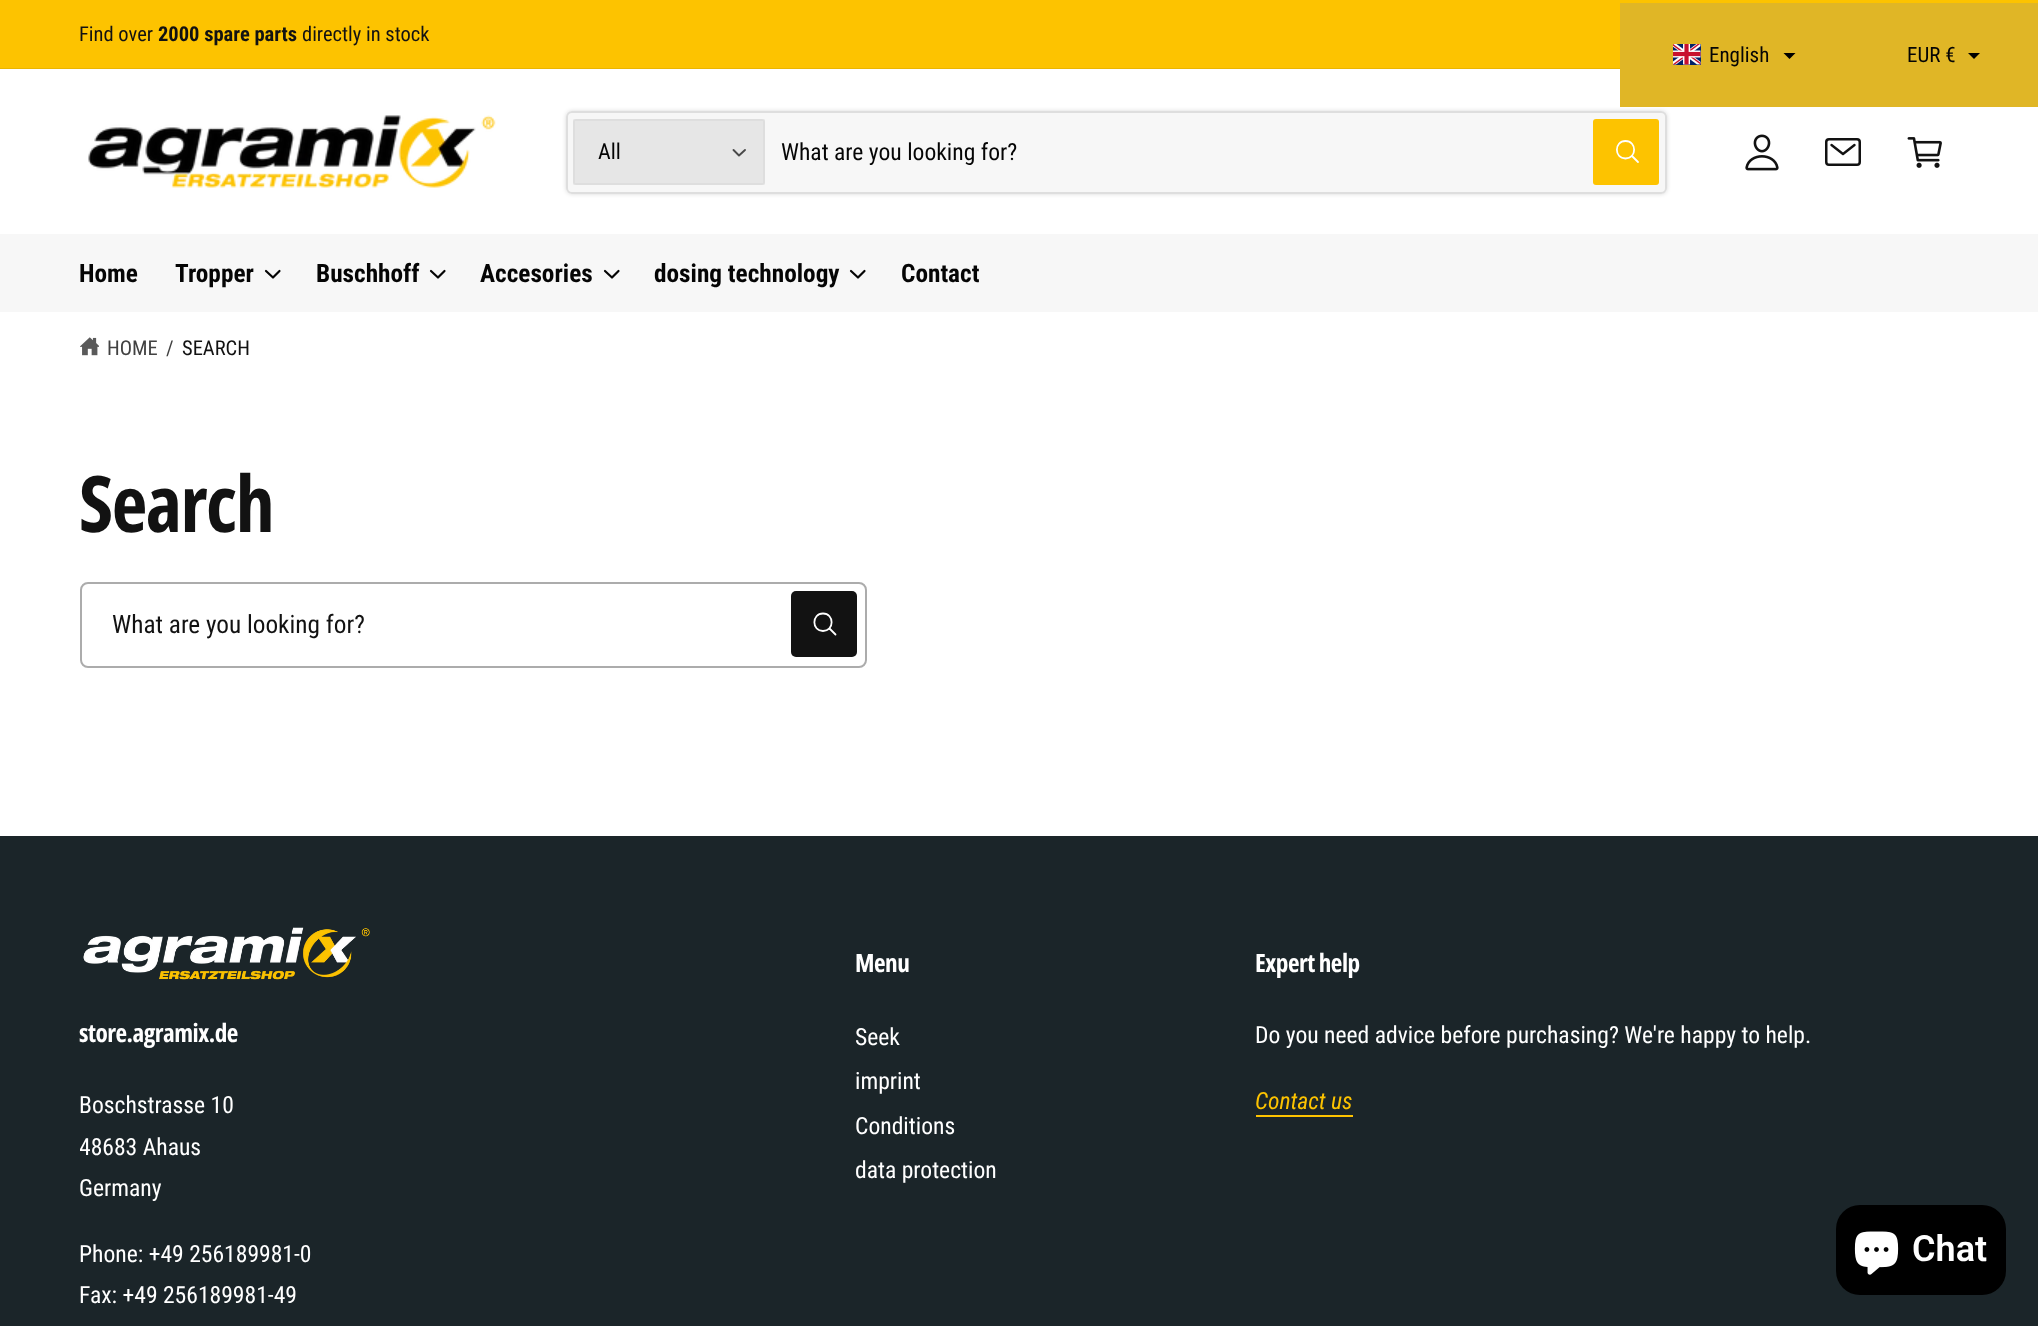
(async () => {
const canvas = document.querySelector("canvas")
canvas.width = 2038
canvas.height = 1326
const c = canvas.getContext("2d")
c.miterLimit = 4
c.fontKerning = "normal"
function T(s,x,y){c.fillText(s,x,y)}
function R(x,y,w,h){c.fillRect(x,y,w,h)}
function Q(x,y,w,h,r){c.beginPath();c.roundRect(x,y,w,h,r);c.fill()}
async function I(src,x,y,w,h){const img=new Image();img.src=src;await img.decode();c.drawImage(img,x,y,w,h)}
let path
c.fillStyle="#fff"
R(0,0,2038,1326)
c.fillStyle="#fdc300"
R(0,0,2038,68)
c.fillStyle="#eab501"
R(0,68,1620,1)
c.font="20.5px Roboto Condensed"
c.fillStyle="#121212"
T("Find over",79,41)
c.font="bold 20.5px Roboto Condensed"
T("2000 spare parts",158,41)
c.font="20.5px Roboto Condensed"
T("directly in stock",302,41)
c.fillStyle="#f7f7f7"
Q(566,111,1101,83,6)
c.fillStyle="#e6e6e6"
Q(573,119,192,66,3)
c.strokeStyle="#05050508"
c.lineWidth=2
c.strokeRect(574,120,190,64)
path = new Path2D("M733.5 150l5.5 5.5l6-5.5")
c.strokeStyle="#494949"
c.lineWidth=1.9
c.lineCap="round"
c.lineJoin="round"
c.stroke(path)
c.fillStyle="#fdc300"
Q(1593,119,66,66,3)
path = new Path2D("M1625.5 141c-11.5 0-11.5 17.5 0 17.5c11.5 0 11.5-17.5 0-17.5z")
c.strokeStyle="#fff"
c.lineWidth=1.8
c.lineCap="butt"
c.lineJoin="miter"
c.stroke(path)
path = new Path2D("M1632 156l6 6")
c.lineCap="round"
c.stroke(path)
c.save()
path = new Path2D("M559 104h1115v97h-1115zm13 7h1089c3.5 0 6 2.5 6 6v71c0 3.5-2.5 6-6 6h-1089c-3.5 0-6-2.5-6-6v-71c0-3.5 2.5-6 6-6z")
c.clip(path,"evenodd")
c.fillStyle="#00000026"
c.filter="blur(2px)"
c.beginPath()
c.roundRect(566,111,1101,83,6)
c.fill()
c.filter="none"
c.restore()
c.fillStyle="#e0b626"
R(1620,3,418,104)
await I("1.png",1673,44,28,21)
c.font="21px Roboto Condensed"
c.fillStyle="#050505"
T("English",1709,62)
c.fillStyle="#000"
path = new Path2D("M1783.5 53l6 6l6-6")
c.fill(path)
c.fillStyle="#050505"
T("EUR €",1907,62)
c.fillStyle="#000"
path = new Path2D("M1968 53l6 6l6-6")
c.fill(path)
await I("2.png",88,115,408,73)
c.beginPath()
c.roundRect(567,112,1099,81,5)
c.strokeStyle="#0505051a"
c.lineWidth=2
c.stroke()
c.font="22px Roboto Condensed"
c.fillStyle="#050505"
T("All",598,159)
c.font="23.6px Roboto Condensed"
T("What are you looking for?",781,160)
await I("3.png",1745,134,34,37)
c.beginPath()
c.roundRect(1826.25,139.25,33.5,25.5,2.75)
c.strokeStyle="#121212"
c.lineWidth=2.5
c.stroke()
path = new Path2D("M1831.5 145l11.5 9l11.5-9")
c.lineWidth=2.4
c.lineJoin="round"
c.stroke(path)
await I("4.png",1907,137,35,31)
c.fillStyle="#f7f7f7"
R(0,234,2038,78)
c.font="bold 25.25px Roboto Condensed"
c.fillStyle="#050505"
T("Home",79,282)
T("Tropper",175,282)
path = new Path2D("M266 271l7 6.5l6.5-6.5")
c.strokeStyle="#050505"
c.lineWidth=2.2
c.stroke(path)
T("Buschhoff",316,282)
path = new Path2D("M431 271l7 6.5l6.5-6.5")
c.stroke(path)
T("Accesories",480,282)
path = new Path2D("M605 271l7 6.5l6.5-6.5")
c.stroke(path)
T("dosing technology",654,282)
path = new Path2D("M851 271l7 6.5l6.5-6.5")
c.stroke(path)
T("Contact",901,282)
await I("5.png",80,337,19,19)
c.font="20.5px Roboto Condensed"
c.fillStyle="#414141"
T("HOME",107,355)
T("/",166,355)
c.fillStyle="#121212"
T("SEARCH",182,355)
c.letterSpacing="-1.5px"
c.font="bold 78px Open Sans Condensed"
T("Search",79,532)
Q(791,591,66,66,5)
path = new Path2D("M823 613.5c-11.5 0-11.5 17.5 0 17.5c11.5 0 11.5-17.5 0-17.5z")
c.strokeStyle="#fff"
c.lineWidth=1.8
c.lineCap="butt"
c.lineJoin="miter"
c.stroke(path)
path = new Path2D("M829.5 628.5l6 6")
c.lineCap="round"
c.stroke(path)
c.beginPath()
c.roundRect(81,583,785,84,7)
c.strokeStyle="#acacac"
c.lineWidth=2
c.stroke()
c.letterSpacing="0px"
c.font="25.25px Roboto Condensed"
T("What are you looking for?",112,633)
c.fillStyle="#1b2529"
R(0,836,2038,490)
await I("6.png",83,927,287,53)
c.letterSpacing="-0.5px"
c.font="bold 25.25px Open Sans Condensed"
c.fillStyle="#fff"
T("store.agramix.de",79,1042)
c.letterSpacing="0px"
c.font="23.6px Roboto Condensed"
T("Boschstrasse 10",79,1113)
c.save()
c.beginPath()
c.rect(80,1070,643,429)
c.clip()
T("48683 Ahaus",79,1155)
c.restore()
T("Germany",79,1196)
T("Phone: +49 256189981-0",79,1262)
T("Fax: +49 256189981-49",79,1303)
c.letterSpacing="-0.5px"
c.font="bold 25.25px Open Sans Condensed"
T("Menu",855,972)
c.letterSpacing="0px"
c.font="23.6px Roboto Condensed"
T("Seek",855,1045)
T("imprint",855,1089)
T("Conditions",855,1134)
T("data protection",855,1178)
c.letterSpacing="-0.5px"
c.font="bold 25.25px Open Sans Condensed"
T("Expert help",1255,972)
c.letterSpacing="0px"
c.font="23.6px Roboto Condensed"
T("Do you need advice before purchasing? We're happy to help.",1255,1043)
c.font="italic 23.6px Roboto Condensed"
c.fillStyle="#fdc300"
T("Contact us",1255,1109)
R(1256,1115,97,2)
c.fillStyle="#000"
Q(1836,1205,170,90,24)
await I("7.png",1854,1231,45,44)
c.font="600 36px Roboto"
c.fillStyle="#fff"
T("Chat",1912,1261)
})()
